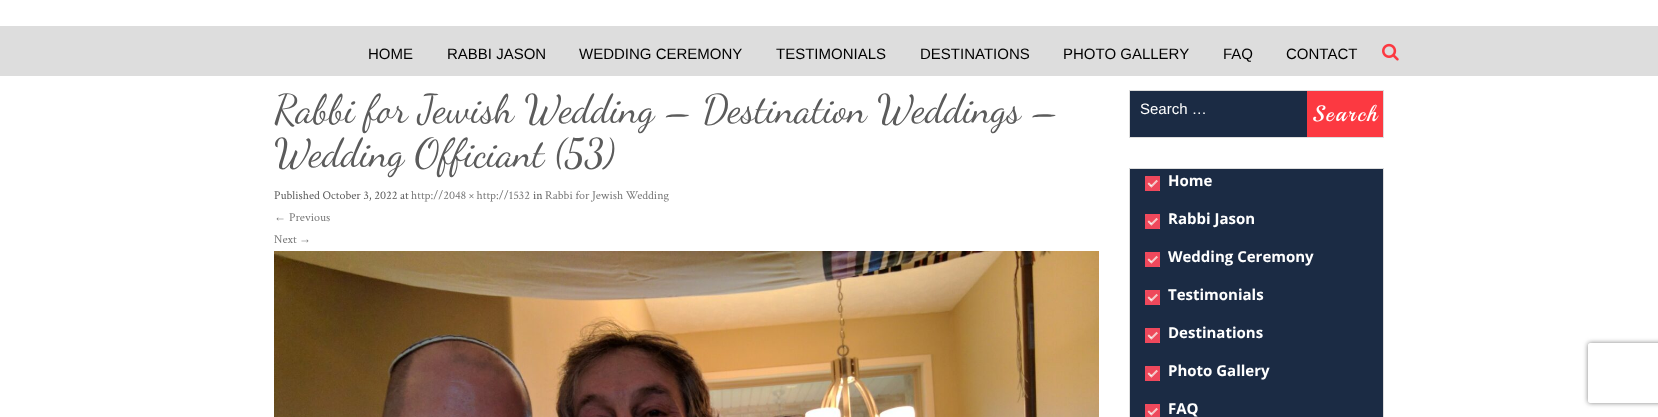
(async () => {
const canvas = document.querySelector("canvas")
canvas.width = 1658
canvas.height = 417
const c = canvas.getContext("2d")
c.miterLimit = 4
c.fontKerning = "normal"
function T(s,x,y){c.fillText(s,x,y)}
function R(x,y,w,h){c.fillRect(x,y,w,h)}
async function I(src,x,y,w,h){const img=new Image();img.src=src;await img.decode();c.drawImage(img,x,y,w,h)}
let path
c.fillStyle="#fff"
R(0,0,1658,417)
c.fillStyle="#ddd"
R(0,26,1658,50)
c.font="15px Liberation Sans"
c.fillStyle="#000"
T("HOME",368,59)
T("RABBI JASON",447,59)
T("WEDDING CEREMONY",579,59)
T("TESTIMONIALS",776,59)
T("DESTINATIONS",920,59)
T("PHOTO GALLERY",1063,59)
T("FAQ",1223,59)
T("CONTACT",1286,59)
await I("1.png",1382,43,17,18)
c.font="40px Dancing Script"
c.fillStyle="#5b5b5b"
T("Rabbi for Jewish Wedding – Destination Weddings –",274,122)
T("Wedding Officiant (53)",274,166)
c.font="12px Crimson Text"
T("Published October 3, 2022 at",274,199)
c.fillStyle="#777"
T("http://2048 × http://1532",411,199)
c.fillStyle="#5b5b5b"
T("in",533,199)
c.fillStyle="#777"
T("Rabbi for Jewish Wedding",545,199)
c.font="12px Liberation Serif"
T("←",274,221)
c.font="12px Crimson Text"
T("Previous",289,221)
T("Next",274,243)
c.font="12px Liberation Serif"
T("→",299,243)
await I("2.png",274,251,825,166)
c.fillStyle="#1b2b44"
R(1130,91,177,46)
c.strokeStyle="#ddd"
c.strokeRect(1129.5,90.5,254,47)
c.font="15px Liberation Sans"
c.fillStyle="#fff"
T("Search …",1140,114)
c.fillStyle="#fc3941"
R(1307,91,76,46)
c.letterSpacing="2px"
c.font="22px Playball"
c.fillStyle="#fff"
T("Search",1312,121)
c.fillStyle="#1b2b44"
c.beginPath()
c.rect(1129.5,168.5,254,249)
c.fill()
c.stroke()
await I("3.png",1145,176,15,15)
c.letterSpacing="0px"
c.font="bold 15px Open Sans"
c.fillStyle="#fff"
T("Home",1168,186)
await I("3.png",1145,214,15,15)
T("Rabbi Jason",1168,224)
await I("3.png",1145,252,15,15)
T("Wedding Ceremony",1168,262)
await I("3.png",1145,290,15,15)
T("Testimonials",1168,300)
await I("3.png",1145,328,15,15)
T("Destinations",1168,338)
await I("3.png",1145,366,15,15)
T("Photo Gallery",1168,376)
await I("4.png",1145,404,15,13)
T("FAQ",1168,414)
c.save()
path = new Path2D("M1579 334h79v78h-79zm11 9h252c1 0 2 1 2 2v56c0 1-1 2-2 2h-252c-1 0-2-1-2-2v-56c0-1 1-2 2-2z")
c.clip(path,"evenodd")
c.fillStyle="#808080"
c.filter="blur(2.5px)"
c.beginPath()
c.roundRect(1588,343,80,60,2)
c.fill()
c.filter="none"
c.restore()
})()
